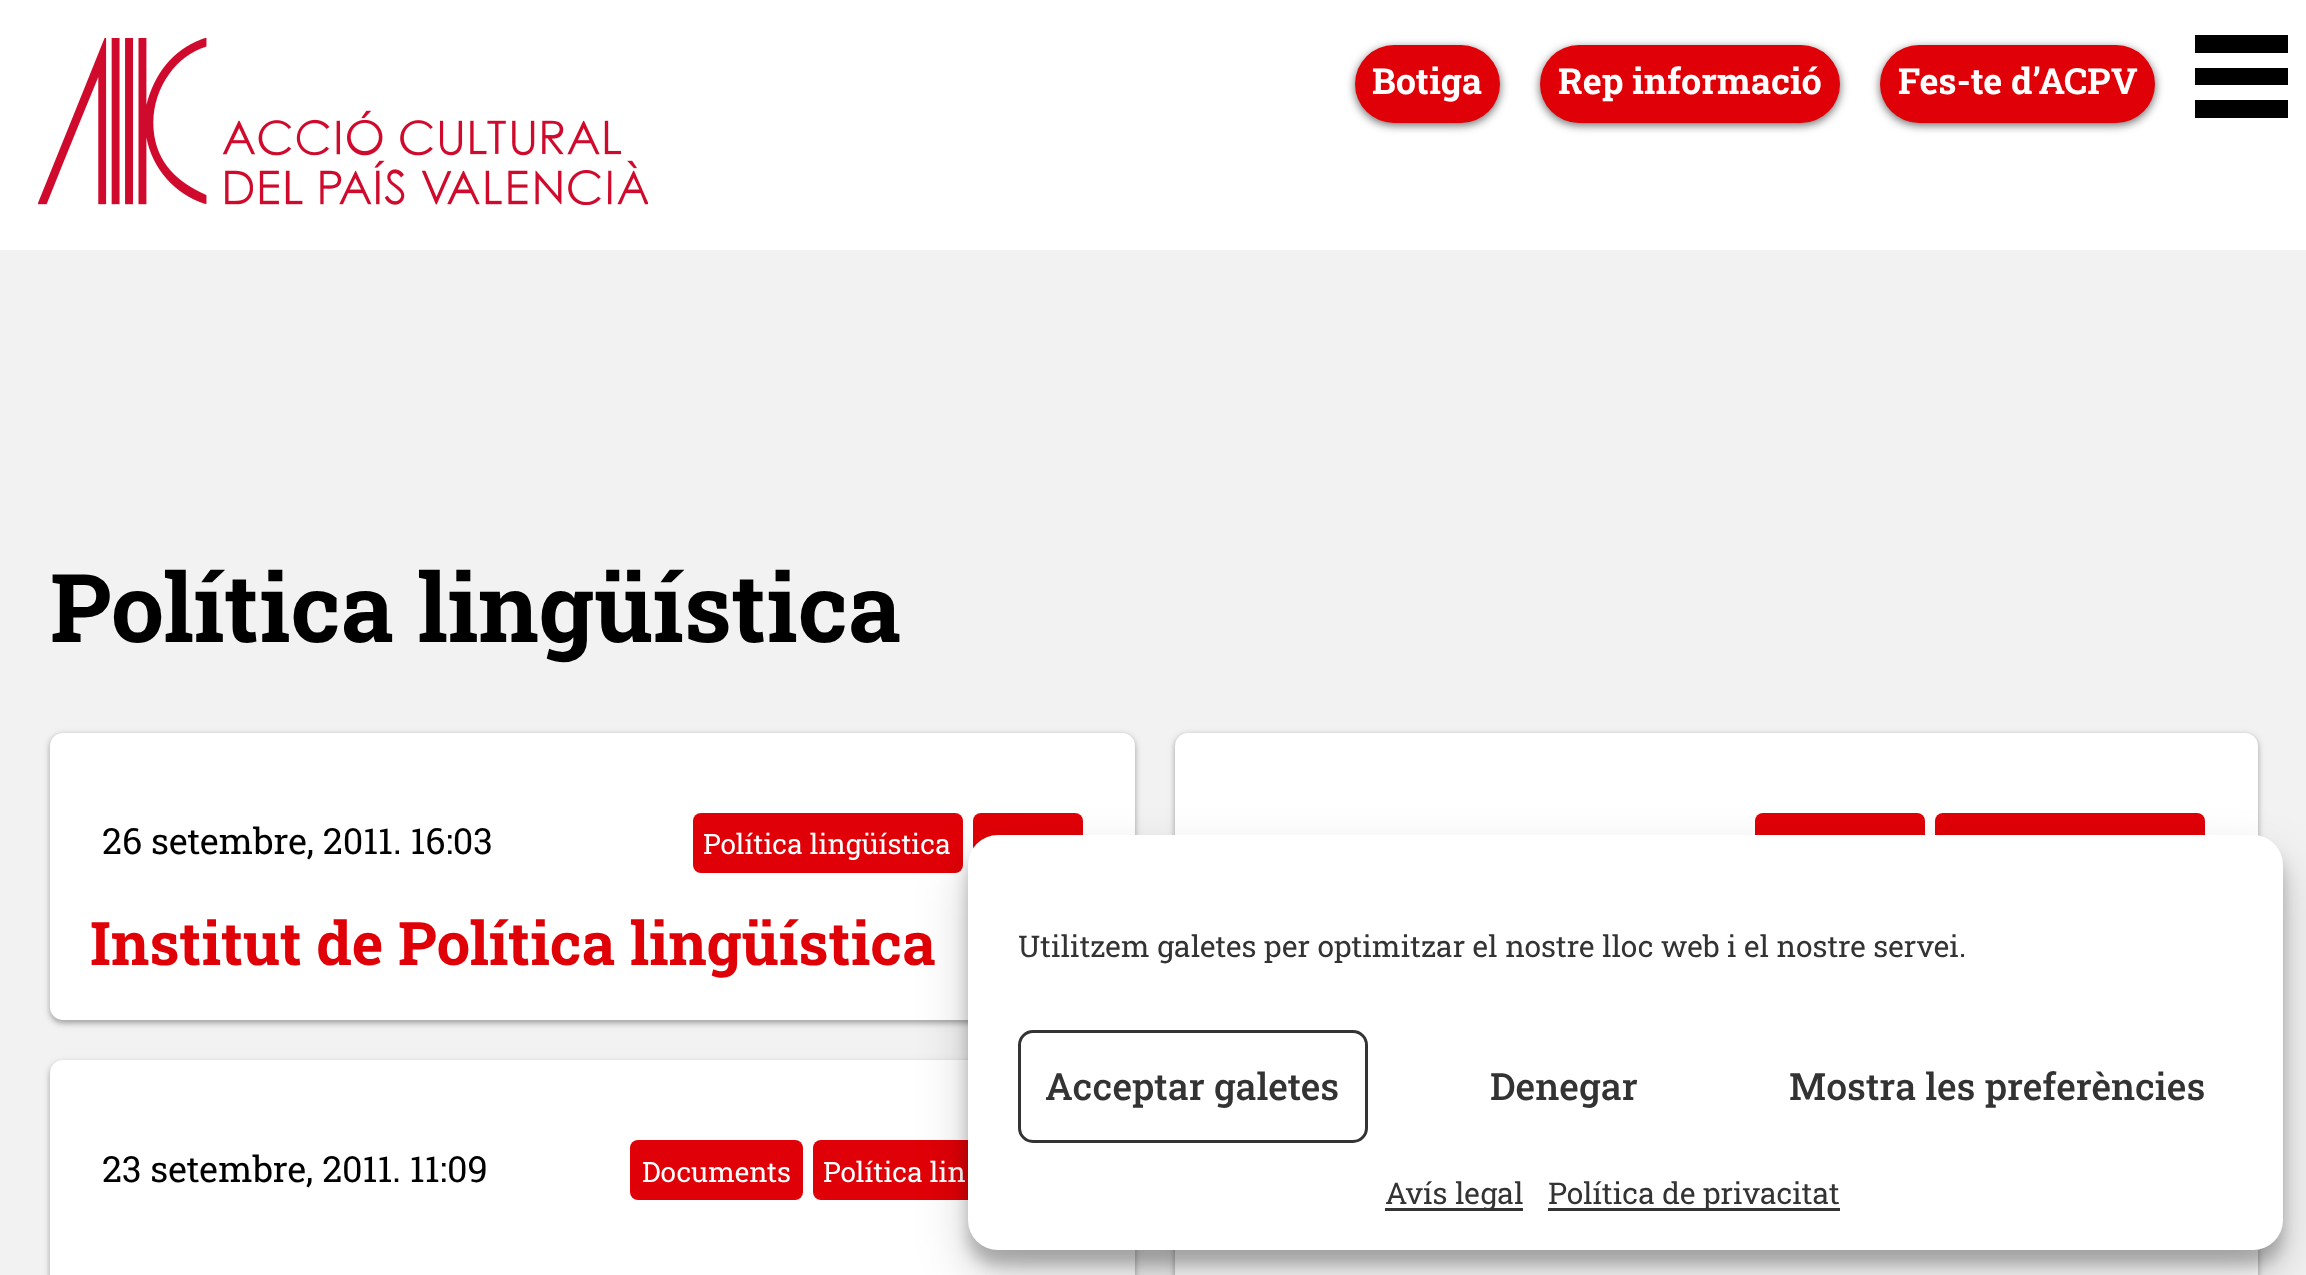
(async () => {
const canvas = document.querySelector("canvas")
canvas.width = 2306
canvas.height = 1275
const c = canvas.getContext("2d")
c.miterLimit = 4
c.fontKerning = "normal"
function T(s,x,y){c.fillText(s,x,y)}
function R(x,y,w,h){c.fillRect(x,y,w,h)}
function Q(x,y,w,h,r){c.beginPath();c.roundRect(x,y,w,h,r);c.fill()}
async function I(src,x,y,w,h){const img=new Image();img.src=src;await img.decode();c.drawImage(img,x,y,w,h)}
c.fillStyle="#fff"
R(0,0,2306,1275)
await I("1.png",38,38,610,167)
c.fillStyle="#00000099"
c.filter="blur(5px)"
c.beginPath()
c.roundRect(1355,48,145,77,38.5)
c.fill()
c.filter="none"
c.fillStyle="#e00007"
Q(1355,45,145,78,39)
c.font="bold 36px Roboto Slab"
c.fillStyle="#fff"
T("Botiga",1372,94)
c.fillStyle="#00000099"
c.filter="blur(5px)"
c.beginPath()
c.roundRect(1540,48,300,77,38.5)
c.fill()
c.filter="none"
c.fillStyle="#e00007"
Q(1540,45,300,78,39)
c.fillStyle="#fff"
T("Rep informació",1558,94)
c.fillStyle="#00000099"
c.filter="blur(5px)"
c.beginPath()
c.roundRect(1880,48,275,77,38.5)
c.fill()
c.filter="none"
c.fillStyle="#e00007"
Q(1880,45,275,78,39)
c.fillStyle="#fff"
T("Fes-te d’ACPV",1898,94)
c.fillStyle="#000"
R(2195,35,93,18)
R(2195,68,93,17)
R(2195,100,93,18)
c.fillStyle="#f2f2f2"
R(0,250,2306,1025)
c.font="bold 95px Roboto Slab"
c.fillStyle="#000"
T("Política lingüística",50,642)
c.fillStyle="#0000003d"
c.filter="blur(2.5px)"
c.beginPath()
c.roundRect(50,735,1085,288,13)
c.fill()
c.filter="none"
c.fillStyle="#0000001f"
c.filter="blur(4px)"
c.beginPath()
c.roundRect(50,735,1085,288,13)
c.fill()
c.filter="none"
c.fillStyle="#fff"
Q(50,733,1085,287,13)
c.font="36px Roboto Slab"
c.fillStyle="#000"
T("26 setembre, 2011. 16:03",102,854)
c.fillStyle="#e00007"
Q(693,813,270,60,8)
c.font="28px Roboto Slab"
c.fillStyle="#fff"
T("Política lingüística",703,854)
c.fillStyle="#e00007"
Q(973,813,110,60,8)
c.font="bold 60px Roboto Slab"
T("Institut de Política lingüística",90,965)
c.fillStyle="#0000003d"
c.filter="blur(2.5px)"
c.beginPath()
c.roundRect(1175,735,1083,288,13)
c.fill()
c.filter="none"
c.fillStyle="#0000001f"
c.filter="blur(4px)"
c.beginPath()
c.roundRect(1175,735,1083,288,13)
c.fill()
c.filter="none"
c.fillStyle="#fff"
Q(1175,733,1083,287,13)
c.fillStyle="#e00007"
Q(1755,813,170,60,8)
Q(1935,813,270,60,8)
c.fillStyle="#0000003d"
c.filter="blur(2.5px)"
c.beginPath()
c.roundRect(50,1063,1085,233,13)
c.fill()
c.filter="none"
c.fillStyle="#0000001f"
c.filter="blur(4px)"
c.beginPath()
c.roundRect(50,1063,1085,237,13)
c.fill()
c.filter="none"
c.fillStyle="#fff"
Q(50,1060,1085,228,13)
c.font="36px Roboto Slab"
c.fillStyle="#000"
T("23 setembre, 2011. 11:09",102,1182)
c.fillStyle="#e00007"
Q(630,1140,173,60,8)
c.font="28px Roboto Slab"
c.fillStyle="#fff"
T("Documents",642,1182)
c.fillStyle="#e00007"
Q(813,1140,270,60,8)
c.fillStyle="#fff"
T("Política lin",823,1182)
c.fillStyle="#0000003d"
c.filter="blur(2.5px)"
c.beginPath()
c.roundRect(1175,1063,1083,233,13)
c.fill()
c.filter="none"
c.fillStyle="#0000001f"
c.filter="blur(4px)"
c.beginPath()
c.roundRect(1175,1063,1083,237,13)
c.fill()
c.filter="none"
c.fillStyle="#fff"
R(1175,1249,1083,26)
c.fillStyle="#0000003b"
c.filter="blur(7.5px)"
c.beginPath()
c.roundRect(968,850,1315,415,30)
c.fill()
c.filter="none"
c.fillStyle="#00000030"
c.filter="blur(25px)"
c.beginPath()
c.roundRect(968,860,1315,415,30)
c.fill()
c.filter="none"
c.fillStyle="#fff"
Q(968,835,1315,415,30)
c.font="30px Roboto Slab"
c.fillStyle="#333"
T("Utilitzem galetes per optimitzar el nostre lloc web i el nostre servei.",1018,957)
c.beginPath()
c.roundRect(1019.5,1031.5,347,110,13.5)
c.strokeStyle="#333"
c.lineWidth=3
c.stroke()
c.font="500 37.5px Roboto Slab"
T("Acceptar galetes",1045,1100)
T("Denegar",1490,1100)
T("Mostra les preferències",1789,1100)
R(1385,1208,138,3)
c.font="30px Roboto Slab"
T("Avís legal",1385,1204)
R(1548,1208,292,3)
T("Política de privacitat",1548,1204)
})()
